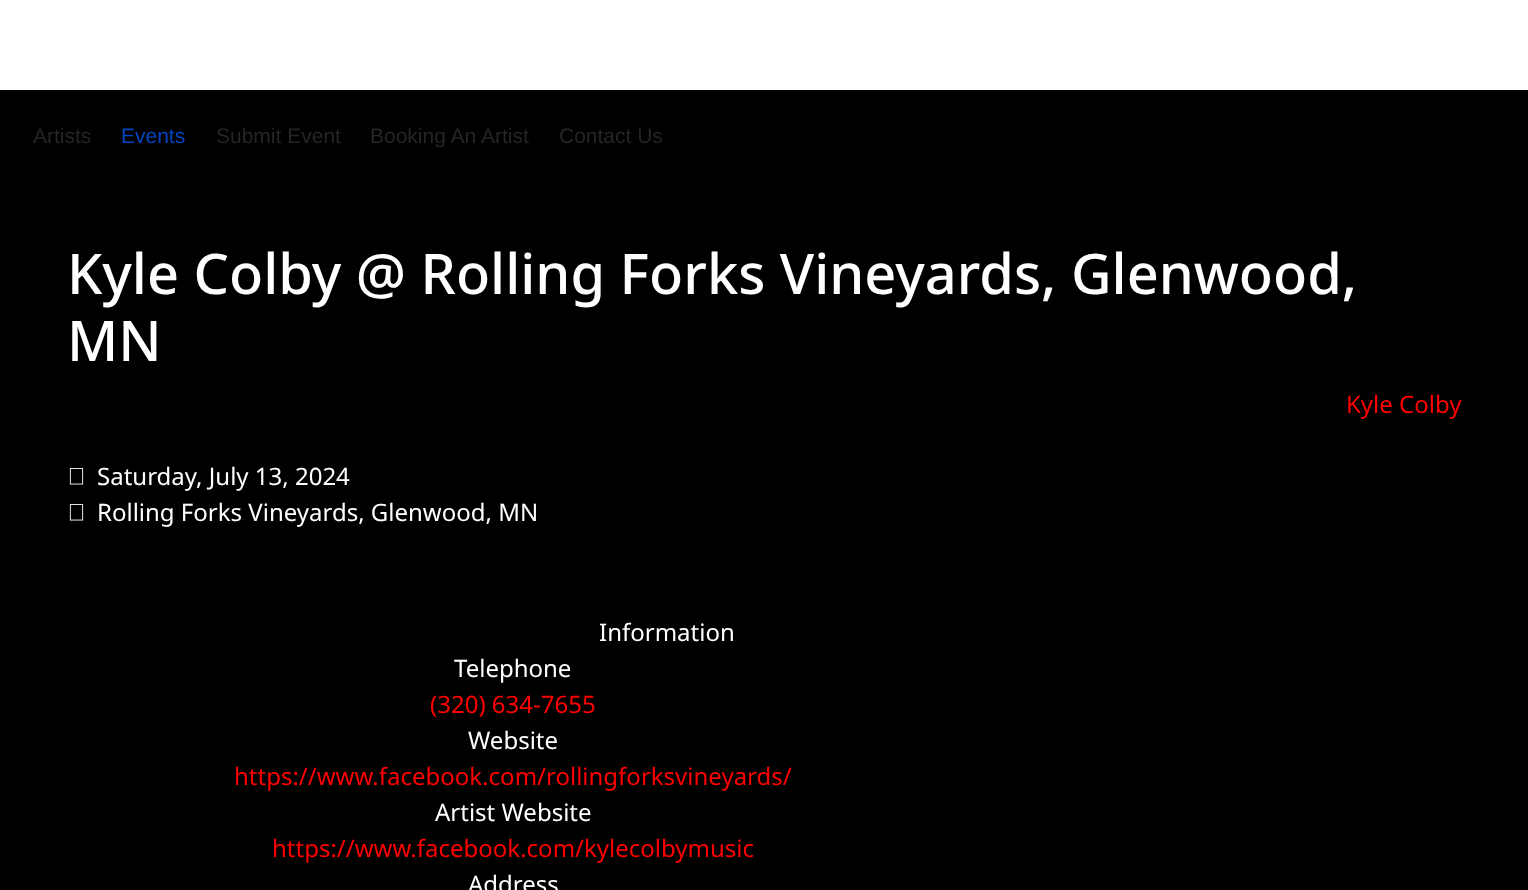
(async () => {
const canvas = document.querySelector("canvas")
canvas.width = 1528
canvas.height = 890
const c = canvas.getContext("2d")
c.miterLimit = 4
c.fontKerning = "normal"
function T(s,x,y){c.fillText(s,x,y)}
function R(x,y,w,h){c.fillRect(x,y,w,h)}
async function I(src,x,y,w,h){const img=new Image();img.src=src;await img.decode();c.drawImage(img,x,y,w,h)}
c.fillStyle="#000"
R(0,0,1528,890)
c.fillStyle="#fff"
R(0,0,1528,90)
c.font="21px Liberation Sans"
c.fillStyle="#252525"
T("Artists",33,143)
c.fillStyle="#0345bf"
T("Events",121,143)
c.fillStyle="#252525"
T("Submit Event",216,143)
T("Booking An Artist",370,143)
T("Contact Us",559,143)
c.font="500 55.9px Noto Sans"
c.fillStyle="#fff"
T("Kyle Colby @ Rolling Forks Vineyards, Glenwood,",67,294)
T("MN",67,361)
c.font="24px Noto Sans"
c.fillStyle="#f00"
T("Kyle Colby",1346,413)
await I("1.png",69,468,15,17)
c.fillStyle="#fff"
T("Saturday, July 13, 2024",97,485)
await I("1.png",69,504,15,17)
T("Rolling Forks Vineyards, Glenwood, MN",97,521)
T("Information",599,641)
T("Telephone",454,677)
c.fillStyle="#f00"
T("(320) 634-7655",430,713)
c.fillStyle="#fff"
T("Website",468,749)
c.fillStyle="#f00"
T("https://www.facebook.com/rollingforksvineyards/",234,785)
c.fillStyle="#fff"
T("Artist Website",435,821)
c.fillStyle="#f00"
T("https://www.facebook.com/kylecolbymusic",272,857)
c.fillStyle="#fff"
T("Address",468,893)
})()
